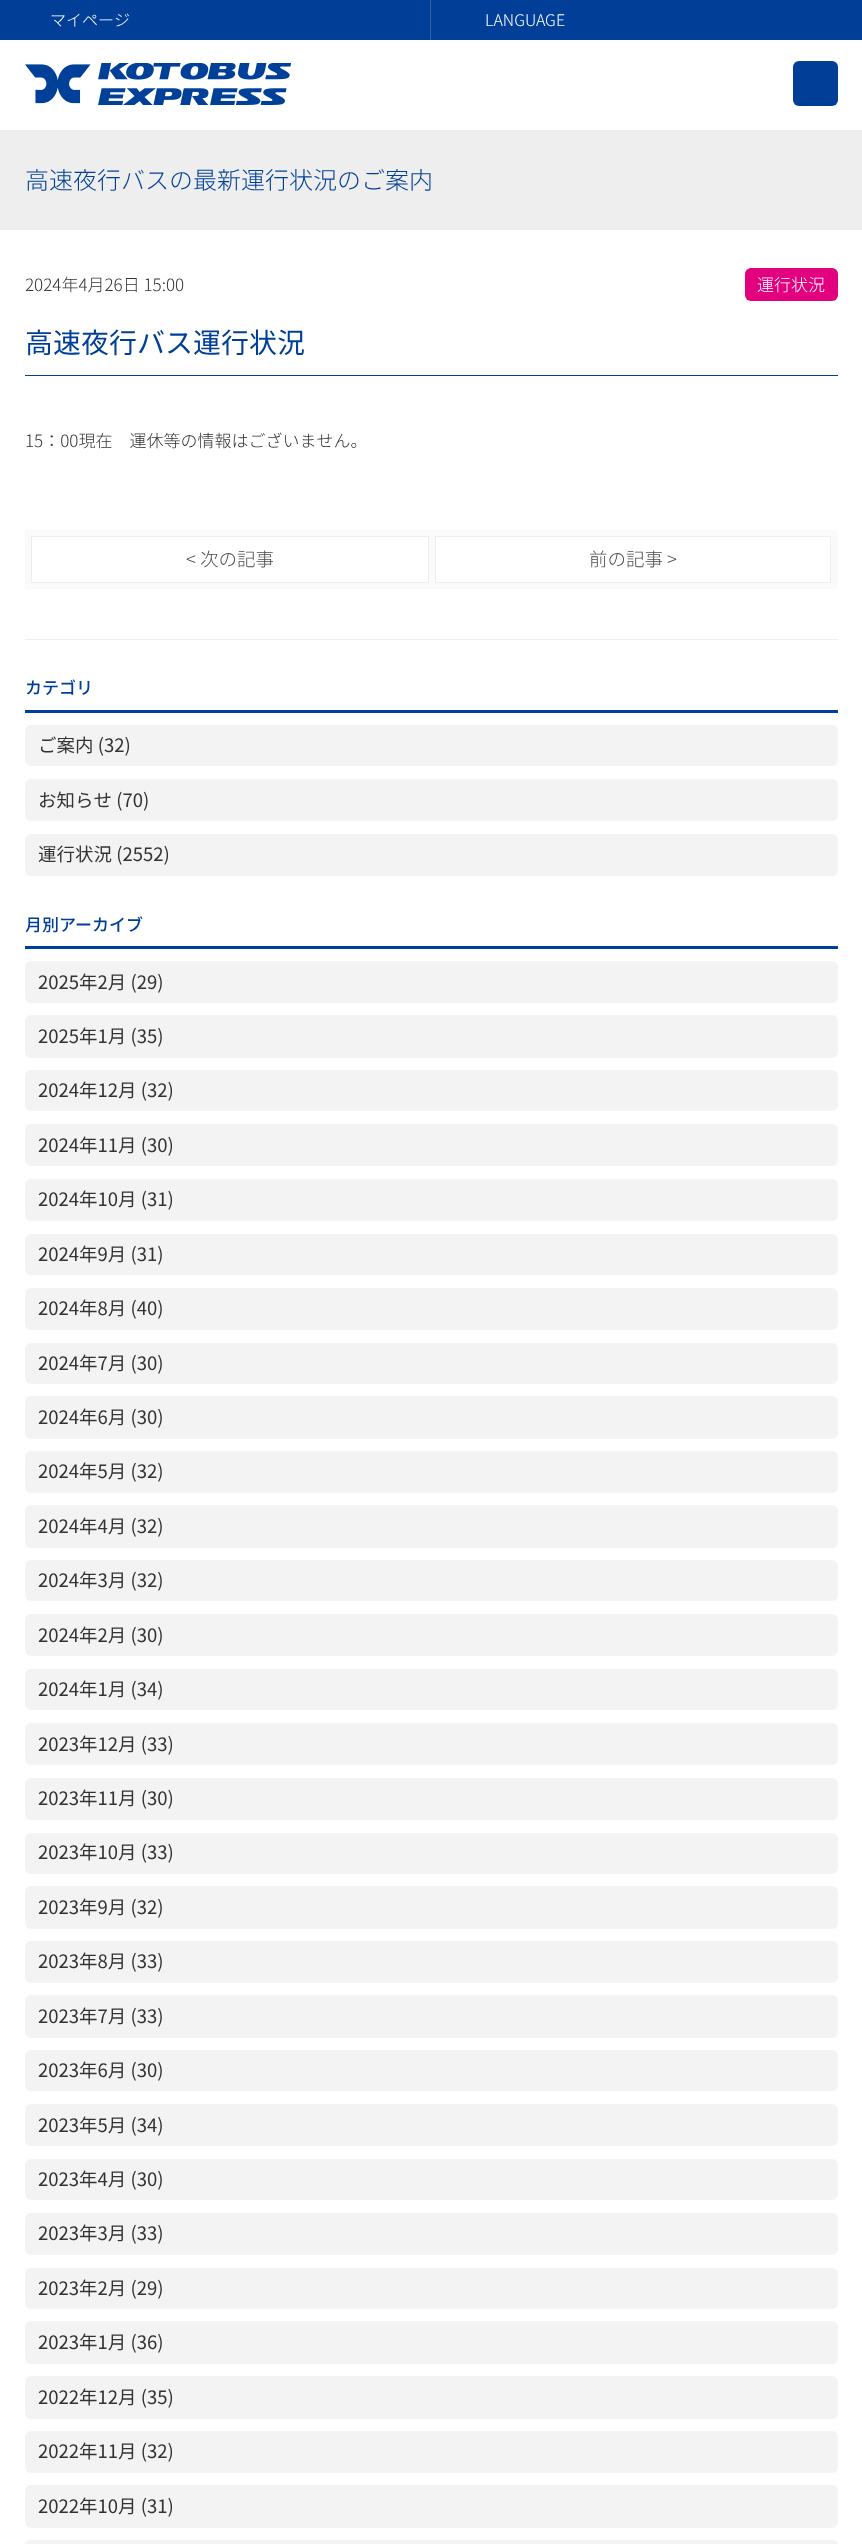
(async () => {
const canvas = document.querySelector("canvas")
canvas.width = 862
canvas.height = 2544
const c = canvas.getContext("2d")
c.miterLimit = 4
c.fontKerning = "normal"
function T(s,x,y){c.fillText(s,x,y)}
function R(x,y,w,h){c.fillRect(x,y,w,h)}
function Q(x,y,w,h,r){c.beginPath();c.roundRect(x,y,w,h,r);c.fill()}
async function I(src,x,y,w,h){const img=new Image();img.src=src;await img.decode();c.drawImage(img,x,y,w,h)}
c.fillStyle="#fff"
R(0,0,862,2544)
c.fillStyle="#003e97"
R(0,0,430,40)
c.fillStyle="#3365ac"
R(430,0,1,40)
c.font="300 16px Noto Sans JP"
c.fillStyle="#fff"
T("マイページ",50,26)
c.fillStyle="#003e97"
R(431,0,431,40)
c.fillStyle="#fff"
T("LANGUAGE",485,26)
await I("1.png",25,63,266,42)
c.fillStyle="#003e97"
Q(793,61,45,45,6)
c.fillStyle="#eee"
R(0,130,862,100)
c.font="300 24px Noto Sans JP"
c.fillStyle="#003f98"
T("高速夜行バスの最新運行状況のご案内",25,189)
c.fillStyle="#eee"
R(25,639,813,1)
c.font="300 17px Noto Sans JP"
c.fillStyle="#333"
T("2024年4月26日 15:00",25,291)
c.fillStyle="#e3007e"
Q(745,268,93,33,6)
c.fillStyle="#fff"
T("運行状況",757,291)
c.fillStyle="#004098"
R(25,375,813,1)
c.font="28px Noto Sans JP"
c.fillStyle="#003f98"
T("高速夜行バス運行状況",25,353)
c.font="300 17px Noto Sans JP"
c.fillStyle="#333"
T("15：00現在　運休等の情報はございません。",25,447)
c.fillStyle="#fafafa"
R(25,530,813,59)
c.fillStyle="#fff"
c.beginPath()
c.rect(31.5,536.5,397,46)
c.fill()
c.strokeStyle="#eee"
c.stroke()
c.font="300 18.5px Noto Sans JP"
c.fillStyle="#4c4c4c"
T("< 次の記事",186,566)
c.fillStyle="#fff"
c.beginPath()
c.rect(435.5,536.5,395,46)
c.fill()
c.stroke()
c.fillStyle="#4c4c4c"
T("前の記事 >",589,566)
c.fillStyle="#004098"
R(25,710,813,3)
c.font="500 17px Noto Sans JP"
c.fillStyle="#003f98"
T("カテゴリ",25,694)
c.fillStyle="#f3f3f3"
Q(25,725,813,41,6)
c.font="18.5px Noto Sans JP"
c.fillStyle="#333"
T("ご案内 (32)",38,752)
c.fillStyle="#f3f3f3"
Q(25,779,813,42,6)
c.fillStyle="#333"
T("お知らせ (70)",38,807)
c.fillStyle="#f3f3f3"
Q(25,834,813,42,6)
c.fillStyle="#333"
T("運行状況 (2552)",38,861)
c.fillStyle="#004098"
R(25,946,813,3)
c.font="500 17px Noto Sans JP"
c.fillStyle="#003f98"
T("月別アーカイブ",25,931)
c.fillStyle="#f3f3f3"
Q(25,961,813,42,6)
c.font="18.5px Noto Sans JP"
c.fillStyle="#333"
T("2025年2月 (29)",38,989)
c.fillStyle="#f3f3f3"
Q(25,1015,813,43,6)
c.fillStyle="#333"
T("2025年1月 (35)",38,1043)
c.fillStyle="#f3f3f3"
Q(25,1070,813,41,6)
c.fillStyle="#333"
T("2024年12月 (32)",38,1097)
c.fillStyle="#f3f3f3"
Q(25,1124,813,42,6)
c.fillStyle="#333"
T("2024年11月 (30)",38,1152)
c.fillStyle="#f3f3f3"
Q(25,1179,813,42,6)
c.fillStyle="#333"
T("2024年10月 (31)",38,1206)
c.fillStyle="#f3f3f3"
Q(25,1234,813,41,6)
c.fillStyle="#333"
T("2024年9月 (31)",38,1261)
c.fillStyle="#f3f3f3"
Q(25,1288,813,42,6)
c.fillStyle="#333"
T("2024年8月 (40)",38,1315)
c.fillStyle="#f3f3f3"
Q(25,1343,813,41,6)
c.fillStyle="#333"
T("2024年7月 (30)",38,1370)
c.fillStyle="#f3f3f3"
Q(25,1396,813,43,6)
c.fillStyle="#333"
T("2024年6月 (30)",38,1424)
c.fillStyle="#f3f3f3"
Q(25,1451,813,42,6)
c.fillStyle="#333"
T("2024年5月 (32)",38,1478)
c.fillStyle="#f3f3f3"
Q(25,1505,813,43,6)
c.fillStyle="#333"
T("2024年4月 (32)",38,1533)
c.fillStyle="#f3f3f3"
Q(25,1560,813,41,6)
c.fillStyle="#333"
T("2024年3月 (32)",38,1587)
c.fillStyle="#f3f3f3"
Q(25,1614,813,42,6)
c.fillStyle="#333"
T("2024年2月 (30)",38,1642)
c.fillStyle="#f3f3f3"
Q(25,1669,813,41,6)
c.fillStyle="#333"
T("2024年1月 (34)",38,1696)
c.fillStyle="#f3f3f3"
Q(25,1723,813,42,6)
c.fillStyle="#333"
T("2023年12月 (33)",38,1751)
c.fillStyle="#f3f3f3"
Q(25,1778,813,42,6)
c.fillStyle="#333"
T("2023年11月 (30)",38,1805)
c.fillStyle="#f3f3f3"
Q(25,1833,813,41,6)
c.fillStyle="#333"
T("2023年10月 (33)",38,1859)
c.fillStyle="#f3f3f3"
Q(25,1886,813,43,6)
c.fillStyle="#333"
T("2023年9月 (32)",38,1914)
c.fillStyle="#f3f3f3"
Q(25,1941,813,42,6)
c.fillStyle="#333"
T("2023年8月 (33)",38,1968)
c.fillStyle="#f3f3f3"
Q(25,1995,813,43,6)
c.fillStyle="#333"
T("2023年7月 (33)",38,2023)
c.fillStyle="#f3f3f3"
Q(25,2050,813,41,6)
c.fillStyle="#333"
T("2023年6月 (30)",38,2077)
c.fillStyle="#f3f3f3"
Q(25,2104,813,42,6)
c.fillStyle="#333"
T("2023年5月 (34)",38,2132)
c.fillStyle="#f3f3f3"
Q(25,2159,813,41,6)
c.fillStyle="#333"
T("2023年4月 (30)",38,2186)
c.fillStyle="#f3f3f3"
Q(25,2213,813,42,6)
c.fillStyle="#333"
T("2023年3月 (33)",38,2240)
c.fillStyle="#f3f3f3"
Q(25,2268,813,41,6)
c.fillStyle="#333"
T("2023年2月 (29)",38,2295)
c.fillStyle="#f3f3f3"
Q(25,2321,813,43,6)
c.fillStyle="#333"
T("2023年1月 (36)",38,2349)
c.fillStyle="#f3f3f3"
Q(25,2376,813,43,6)
c.fillStyle="#333"
T("2022年12月 (35)",38,2404)
c.fillStyle="#f3f3f3"
Q(25,2431,813,42,6)
c.fillStyle="#333"
T("2022年11月 (32)",38,2458)
c.fillStyle="#f3f3f3"
Q(25,2485,813,43,6)
c.fillStyle="#333"
T("2022年10月 (31)",38,2513)
c.fillStyle="#f3f3f3"
Q(25,2540,813,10,6)
})()
